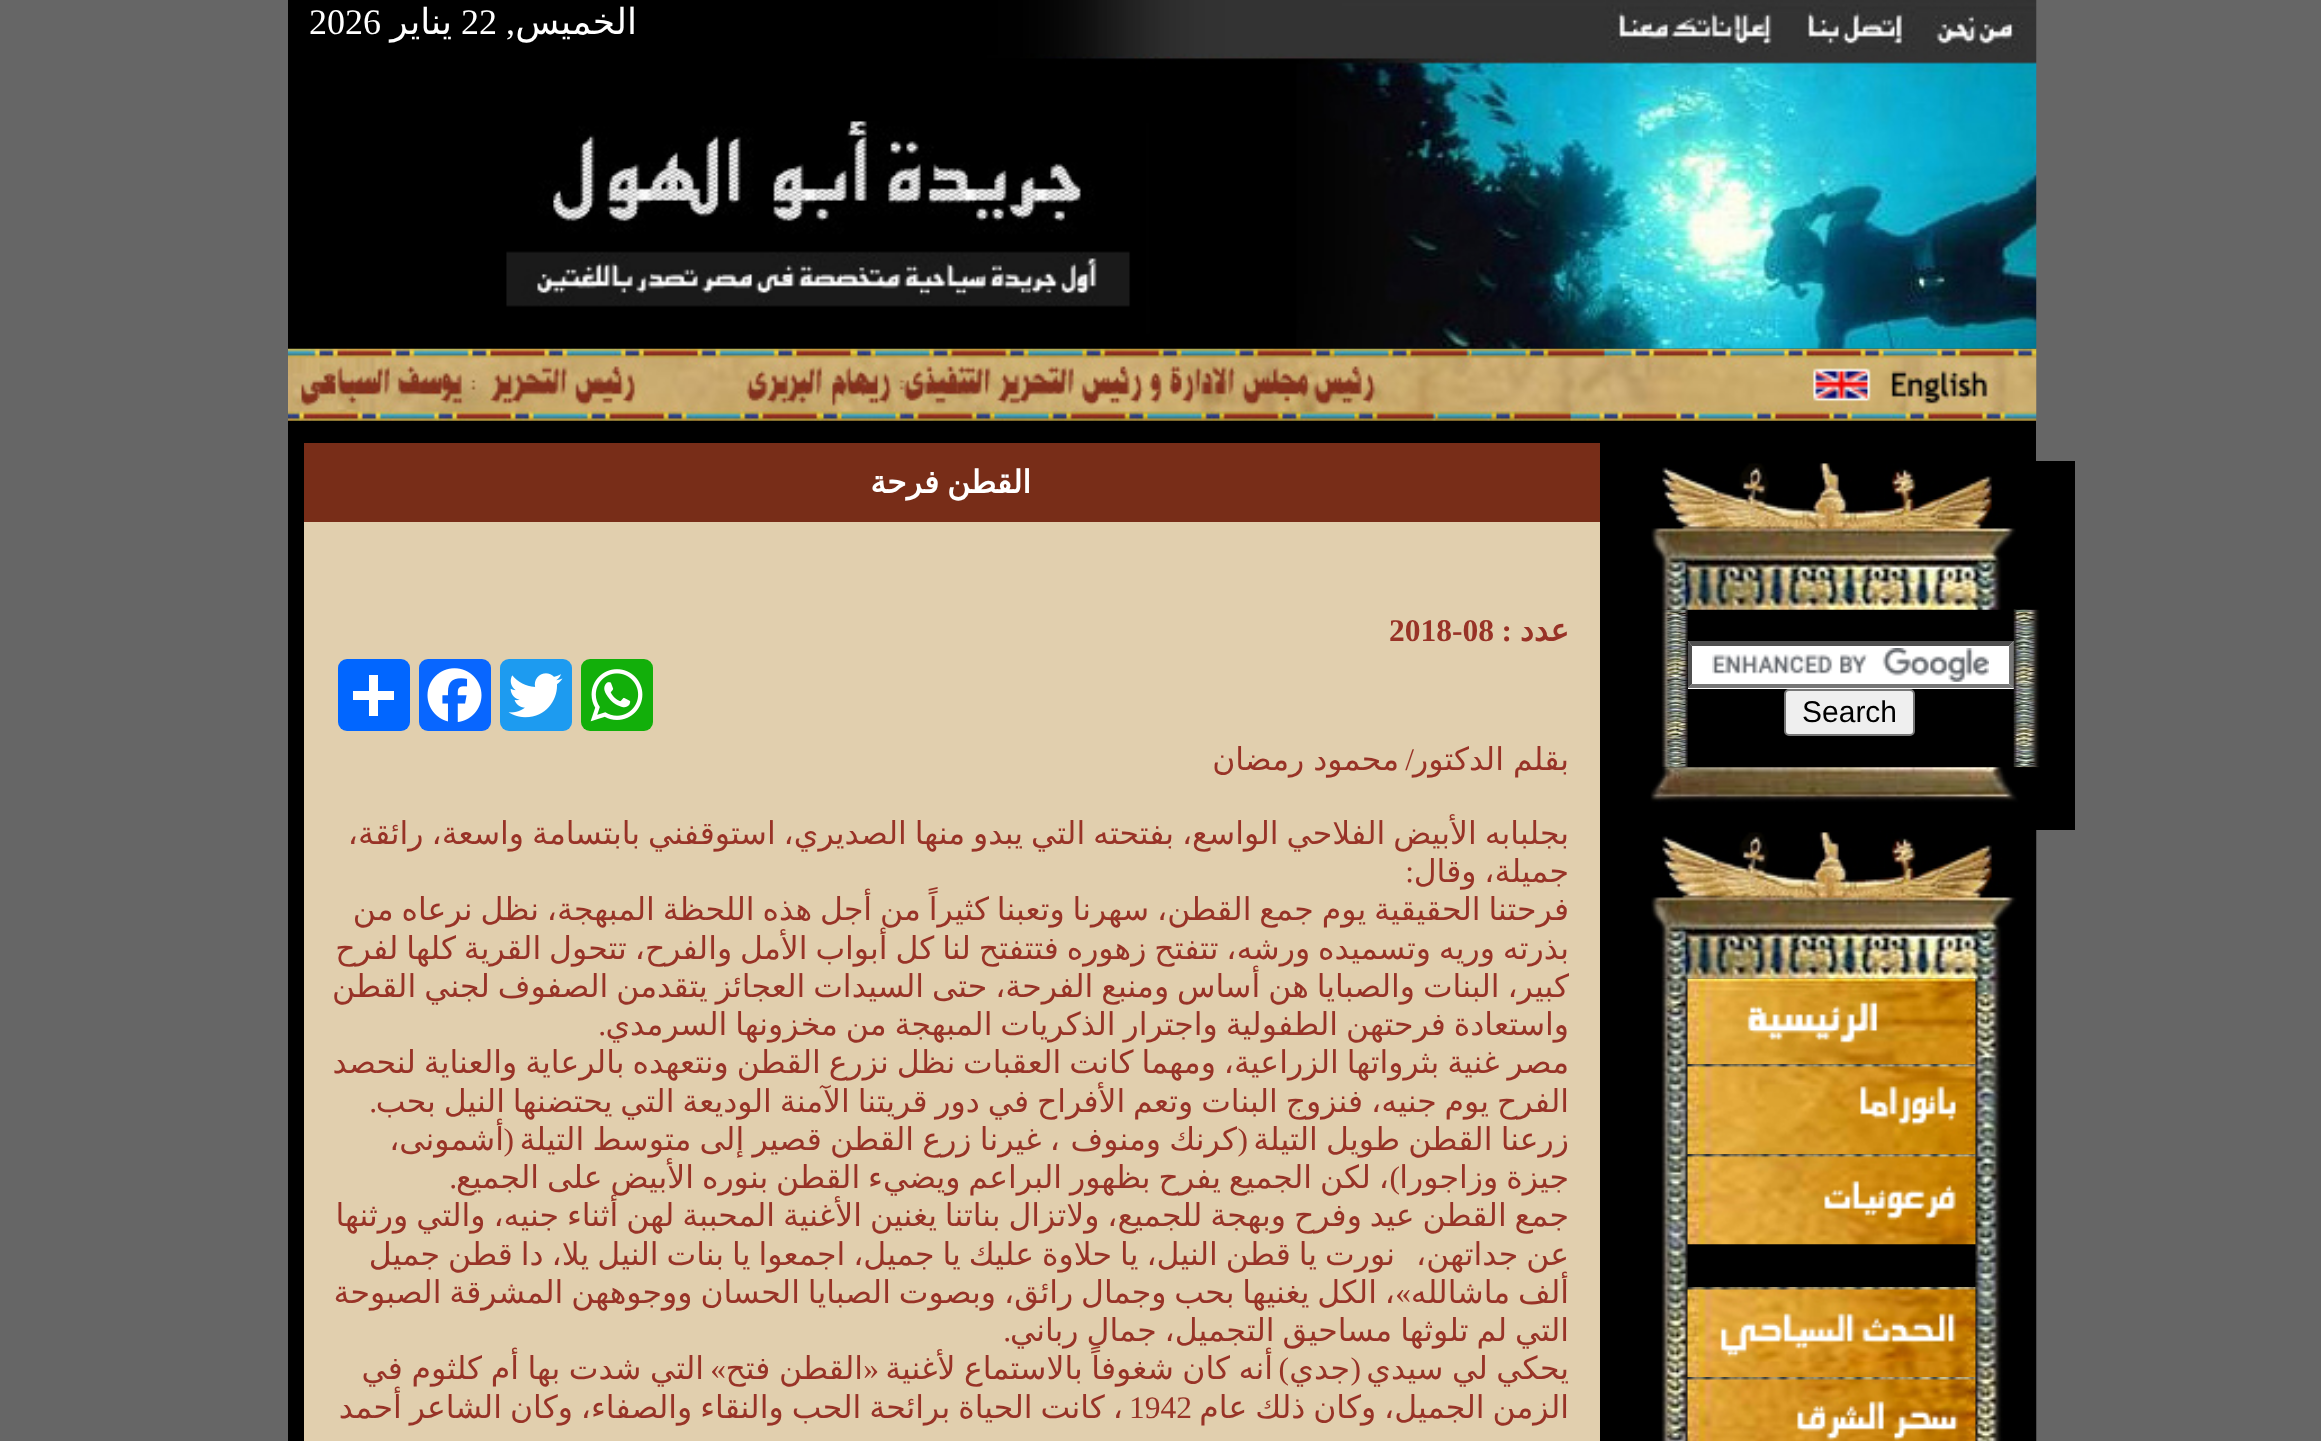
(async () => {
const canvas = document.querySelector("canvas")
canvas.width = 2321
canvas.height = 1441
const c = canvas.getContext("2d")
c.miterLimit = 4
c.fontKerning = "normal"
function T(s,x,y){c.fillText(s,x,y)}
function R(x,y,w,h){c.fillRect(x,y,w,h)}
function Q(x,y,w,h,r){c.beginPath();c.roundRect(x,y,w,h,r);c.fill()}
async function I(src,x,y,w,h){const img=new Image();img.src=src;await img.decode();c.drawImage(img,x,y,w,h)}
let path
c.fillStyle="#666"
R(0,0,2321,1441)
c.fillStyle="#000"
R(288,0,1748,1441)
await I("1.png",506,0,1531,349)
c.direction="rtl"
c.font="36px DejaVu Sans"
c.fillStyle="#fff"
T("الخميس",637,34)
c.direction="ltr"
c.font="36px Liberation Serif"
T("22",461,34)
c.direction="rtl"
c.font="36px DejaVu Sans"
T("يناير",452,34)
c.direction="ltr"
c.font="36px Liberation Serif"
T("2026",309,34)
c.direction="rtl"
T(",",515,34)
await I("2.png",288,348,1749,73)
c.fillStyle="#000"
R(2036,461,39,369)
await I("3.png",1651,463,365,147)
c.fillStyle="#fff"
R(1688,641,326,48)
c.fillStyle="#4f4f4f"
path = new Path2D("M1688 641h326l-5 5h-317z")
c.fill(path)
c.fillStyle="#767676"
path = new Path2D("M2014 641v47l-5-4v-38z")
c.fill(path)
path = new Path2D("M2014 688h-326l4-4h317z")
c.fill(path)
await I("4.png",2013,609,27,159)
await I("5.png",1712,648,277,34)
c.fillStyle="#4f4f4f"
path = new Path2D("M1688 688v-47l4 5v38z")
c.fill(path)
c.fillStyle="#efefef"
c.beginPath()
c.roundRect(1785,690,129,45,4)
c.fill()
c.strokeStyle="#767676"
c.lineWidth=2
c.stroke()
c.direction="ltr"
c.font="30px Liberation Sans"
c.fillStyle="#000"
T("Search",1802,722)
await I("6.png",1661,609,27,159)
await I("7.png",1650,767,387,64)
await I("9.png",1975,978,62,463)
await I("11.png",1661,978,27,463)
await I("8.png",1651,830,386,149)
await I("10.png",1687,978,289,87)
await I("12.png",1687,1064,289,91)
await I("13.png",1687,1154,289,91)
await I("14.png",1687,1287,289,90)
await I("15.png",1687,1377,289,64)
c.fillStyle="#782d18"
R(304,443,1296,79)
c.wordSpacing="-2.1px"
c.direction="rtl"
c.font="bold 31.5px DejaVu Sans"
c.fillStyle="#fff"
T("القطن فرحة",1031,493)
c.fillStyle="#e1cfae"
R(304,522,1296,919)
c.wordSpacing="0px"
c.fillStyle="#983327"
T("عدد",1569,641)
c.font="bold 31.5px Liberation Serif"
T(":",1512,641)
c.direction="ltr"
T("2018-08",1389,641)
c.fillStyle="#12af0a"
Q(581,659,72,72,9)
await I("16.png",590,669,53,53)
c.fillStyle="#1d9bf0"
Q(500,659,72,72,9)
await I("17.png",508,673,55,45)
c.fillStyle="#0866ff"
Q(419,659,72,72,9)
await I("18.png",427,668,55,54)
c.fillStyle="#0166ff"
Q(338,659,72,72,9)
c.fillStyle="#fff"
R(369,675,9,41)
R(353,691,41,9)
c.direction="rtl"
c.font="31.5px Liberation Serif"
c.fillStyle="#983327"
T("/",1414,770)
c.wordSpacing="-1px"
c.font="31.5px DejaVu Sans"
T("بقلم الدكتور",1569,770)
T("محمود رمضان",1399,770)
c.wordSpacing="-2.1px"
T("بجلبابه الأبيض الفلاحي الواسع، بفتحته التي يبدو منها الصديري، استوقفني بابتسامة واسعة، رائقة،",1569,844)
T("جميلة، وقال",1569,882)
c.wordSpacing="0px"
c.font="31.5px Liberation Serif"
T(":",1414,882)
c.wordSpacing="-2.1px"
c.font="31.5px DejaVu Sans"
T("فرحتنا الحقيقية يوم جمع القطن، سهرنا وتعبنا كثيراً من أجل هذه اللحظة المبهجة، نظل نرعاه من",1569,920)
T("بذرته وريه وتسميده ورشه، تتفتح زهوره فتتفتح لنا كل أبواب الأمل والفرح، تتحول القرية كلها لفرح",1569,959)
T("كبير، البنات والصبايا هن أساس ومنبع الفرحة، حتى السيدات العجائز يتقدمن الصفوف لجني القطن",1569,997)
T("واستعادة فرحتهن الطفولية واجترار الذكريات المبهجة من مخزونها السرمدي",1569,1035)
c.wordSpacing="0px"
c.font="31.5px Liberation Serif"
T(".",606,1035)
c.wordSpacing="-2.1px"
c.font="31.5px DejaVu Sans"
T("مصر غنية بثرواتها الزراعية، ومهما كانت العقبات نظل نزرع القطن ونتعهده بالرعاية والعناية لنحصد",1569,1073)
T("الفرح يوم جنيه، فنزوج البنات وتعم الأفراح في دور قريتنا الآمنة الوديعة التي يحتضنها النيل بحب",1569,1112)
c.wordSpacing="0px"
c.font="31.5px Liberation Serif"
T(".",377,1112)
c.wordSpacing="-1.75px"
c.font="31.5px DejaVu Sans"
T("زرعنا القطن طويل التيلة",1569,1150)
T("كرنك ومنوف",1237,1150)
c.wordSpacing="0px"
c.font="31.5px Liberation Serif"
T("(",1248,1150)
c.wordSpacing="-1.75px"
c.font="31.5px DejaVu Sans"
T("، غيرنا زرع القطن قصير إلى متوسط التيلة",1060,1150)
c.wordSpacing="0px"
c.font="31.5px Liberation Serif"
T("(",514,1150)
c.font="31.5px DejaVu Sans"
T("أشمونى،",504,1150)
c.wordSpacing="-2.1px"
T("جيزة وزاجورا",1569,1188)
c.wordSpacing="0px"
c.font="31.5px Liberation Serif"
T(")",1400,1188)
c.wordSpacing="-2.1px"
c.font="31.5px DejaVu Sans"
T("، لكن الجميع يفرح بظهور البراعم ويضيء القطن بنوره الأبيض على الجميع",1389,1188)
c.wordSpacing="0px"
c.font="31.5px Liberation Serif"
T(".",457,1188)
c.wordSpacing="-2.1px"
c.font="31.5px DejaVu Sans"
T("جمع القطن عيد وفرح وبهجة للجميع، ولاتزال بناتنا يغنين الأغنية المحببة لهن أثناء جنيه، والتي ورثنها",1569,1226)
c.wordSpacing="-2px"
T("عن جداتهن،",1569,1265)
T("نورت يا قطن النيل، يا حلاوة عليك يا جميل، اجمعوا يا بنات النيل يلا، دا قطن جميل",1395,1265)
c.wordSpacing="-2.1px"
T("ألف ماشالله",1569,1303)
c.wordSpacing="0px"
c.font="31.5px Liberation Serif"
T("»",1411,1303)
c.wordSpacing="-2.1px"
c.font="31.5px DejaVu Sans"
T("، الكل يغنيها بحب وجمال رائق، وبصوت الصبايا الحسان ووجوههن المشرقة الصبوحة",1395,1303)
T("التي لم تلوثها مساحيق التجميل، جمال رباني",1569,1341)
c.wordSpacing="0px"
c.font="31.5px Liberation Serif"
T(".",1011,1341)
c.wordSpacing="-1.5px"
c.font="31.5px DejaVu Sans"
T("يحكي لي سيدي",1569,1379)
c.wordSpacing="0px"
c.font="31.5px Liberation Serif"
T("(",1361,1379)
c.font="31.5px DejaVu Sans"
T("جدي",1350,1379)
c.font="31.5px Liberation Serif"
T(")",1289,1379)
c.wordSpacing="-1.5px"
c.font="31.5px DejaVu Sans"
T("أنه كان شغوفاً بالاستماع لأغنية",1273,1379)
c.wordSpacing="0px"
c.font="31.5px Liberation Serif"
T("«",879,1379)
c.wordSpacing="-1.5px"
c.font="31.5px DejaVu Sans"
T("القطن فتح",863,1379)
c.wordSpacing="0px"
c.font="31.5px Liberation Serif"
T("»",726,1379)
c.wordSpacing="-1.5px"
c.font="31.5px DejaVu Sans"
T("التي شدت بها أم كلثوم في",704,1379)
c.wordSpacing="-2.1px"
T("الزمن الجميل، وكان ذلك عام",1569,1418)
c.wordSpacing="-2px"
T("، كانت الحياة برائحة الحب والنقاء والصفاء، وكان الشاعر أحمد",1123,1418)
c.wordSpacing="0px"
c.direction="ltr"
c.font="31.5px Liberation Serif"
T("1942",1129,1418)
})()
